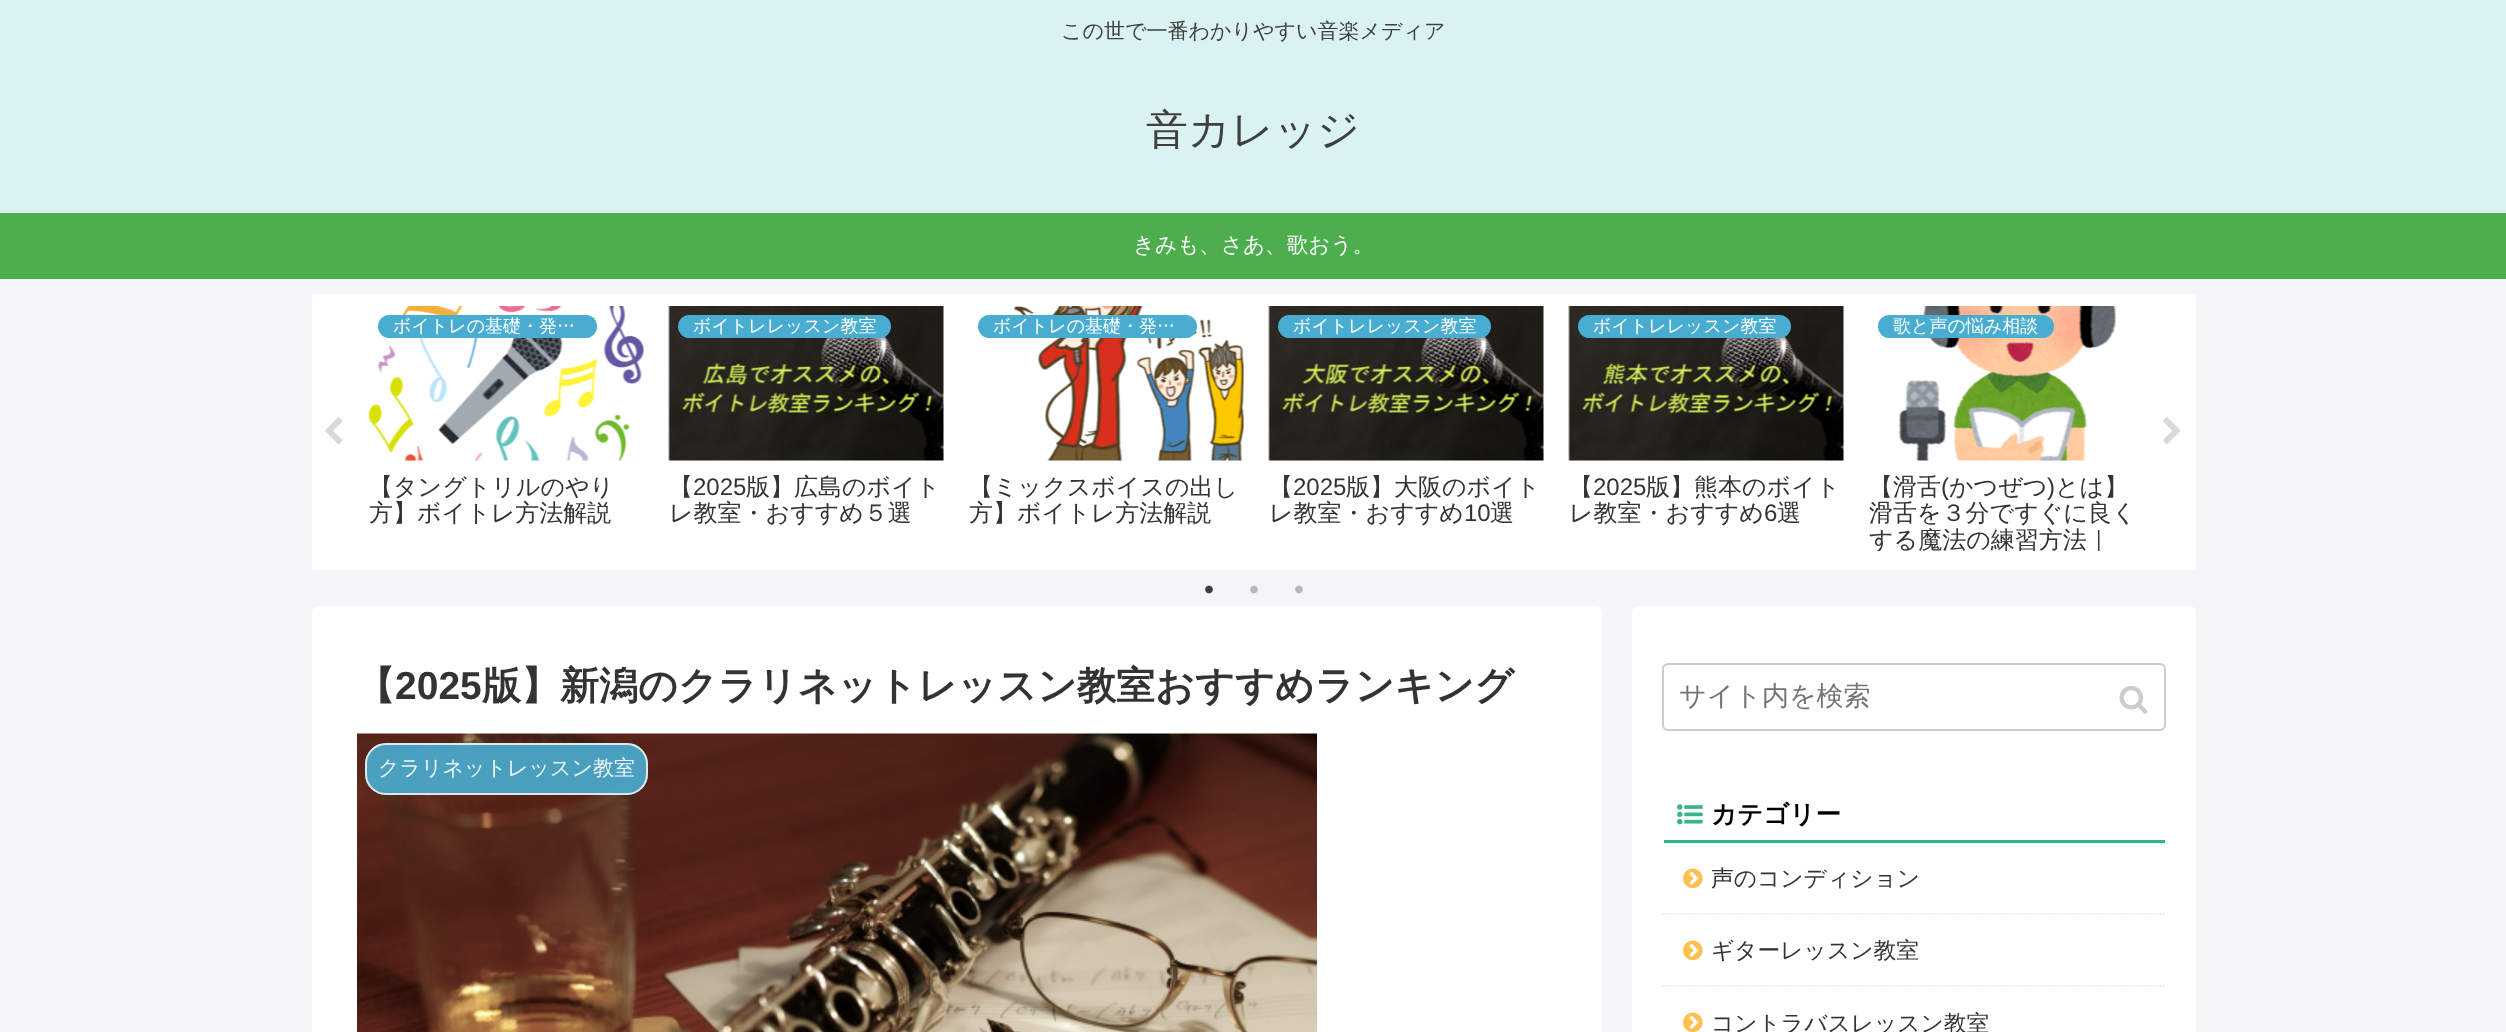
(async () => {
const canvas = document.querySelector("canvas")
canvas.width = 2506
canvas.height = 1032
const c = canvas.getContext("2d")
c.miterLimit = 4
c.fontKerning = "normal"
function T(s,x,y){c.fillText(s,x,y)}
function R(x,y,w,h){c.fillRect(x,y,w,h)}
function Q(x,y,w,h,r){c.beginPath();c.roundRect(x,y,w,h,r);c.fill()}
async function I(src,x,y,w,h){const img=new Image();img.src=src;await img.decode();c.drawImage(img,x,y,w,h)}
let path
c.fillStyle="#f4f5f7"
R(0,0,2506,1032)
c.fillStyle="#daf2f2"
R(0,0,2506,213)
c.font="500 21px WenQuanYi Zen Hei"
c.fillStyle="#3f3f3f"
T("この世で一番わかりやすい音楽メディア",1061,38)
c.font="500 42px WenQuanYi Zen Hei"
T("音カレッジ",1146,144)
c.fillStyle="#4cae4c"
R(0,213,2506,66)
c.font="500 21.6px WenQuanYi Zen Hei"
c.fillStyle="#fff"
T("きみも、さあ、歌おう。",1133,252)
R(312,294,1884,276)
await I("1.png",325,417,18,28)
await I("2.png",368,306,276,155)
c.fillStyle="#49add1"
Q(378,315,219,23,11.5)
c.font="500 18px WenQuanYi Zen Hei"
c.fillStyle="#fff"
T("ボイトレの基礎・発…",393,332)
c.font="500 24px WenQuanYi Zen Hei"
c.fillStyle="#333"
T("【タングトリルのやり",369,495)
T("方】ボイトレ方法解説",369,521)
await I("3.png",668,306,276,155)
c.fillStyle="#49add1"
Q(678,315,213,23,11.5)
c.font="500 18px WenQuanYi Zen Hei"
c.fillStyle="#fff"
T("ボイトレレッスン教室",693,332)
c.font="500 24px WenQuanYi Zen Hei"
c.fillStyle="#333"
T("【",669,495)
c.font="24px Liberation Sans"
T("2025",693,495)
c.font="500 24px WenQuanYi Zen Hei"
T("版】広島のボイト",746,495)
T("レ教室・おすすめ５選",669,521)
await I("4.png",1013,306,231,155)
c.fillStyle="#49add1"
Q(978,315,219,23,11.5)
c.font="500 18px WenQuanYi Zen Hei"
c.fillStyle="#fff"
T("ボイトレの基礎・発…",993,332)
c.font="500 24px WenQuanYi Zen Hei"
c.fillStyle="#333"
T("【ミックスボイスの出し",969,495)
T("方】ボイトレ方法解説",969,521)
await I("5.png",1268,306,276,155)
c.fillStyle="#49add1"
Q(1278,315,213,23,11.5)
c.font="500 18px WenQuanYi Zen Hei"
c.fillStyle="#fff"
T("ボイトレレッスン教室",1293,332)
c.font="500 24px WenQuanYi Zen Hei"
c.fillStyle="#333"
T("【",1269,495)
c.font="24px Liberation Sans"
T("2025",1293,495)
c.font="500 24px WenQuanYi Zen Hei"
T("版】大阪のボイト",1346,495)
T("レ教室・おすすめ",1269,521)
c.font="24px Liberation Sans"
T("10",1464,521)
c.font="500 24px WenQuanYi Zen Hei"
T("選",1490,521)
await I("6.png",1568,306,276,155)
c.fillStyle="#49add1"
Q(1578,315,213,23,11.5)
c.font="500 18px WenQuanYi Zen Hei"
c.fillStyle="#fff"
T("ボイトレレッスン教室",1593,332)
c.font="500 24px WenQuanYi Zen Hei"
c.fillStyle="#333"
T("【",1569,495)
c.font="24px Liberation Sans"
T("2025",1593,495)
c.font="500 24px WenQuanYi Zen Hei"
T("版】熊本のボイト",1646,495)
T("レ教室・おすすめ",1569,521)
c.font="24px Liberation Sans"
T("6",1764,521)
c.font="500 24px WenQuanYi Zen Hei"
T("選",1777,521)
await I("7.png",1899,306,218,155)
c.fillStyle="#49add1"
Q(1878,315,176,23,11.5)
c.font="500 18px WenQuanYi Zen Hei"
c.fillStyle="#fff"
T("歌と声の悩み相談",1893,332)
c.font="500 24px WenQuanYi Zen Hei"
c.fillStyle="#333"
T("【滑舌",1869,495)
c.font="24px Liberation Sans"
T("(",1941,495)
c.font="500 24px WenQuanYi Zen Hei"
T("かつぜつ",1949,495)
c.font="24px Liberation Sans"
T(")",2047,495)
c.font="500 24px WenQuanYi Zen Hei"
T("とは】",2055,495)
T("滑舌を３分ですぐに良く",1869,521)
c.save()
c.beginPath()
c.rect(1869,474,275,77)
c.clip()
T("する魔法の練習方法｜",1869,548)
c.restore()
await I("8.png",2163,417,18,27)
await I("9.png",1205,585,8,9)
await I("10.png",1250,585,8,9)
await I("10.png",1295,585,8,9)
c.fillStyle="#fff"
Q(312,606,1290,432,6)
c.font="bold 39px WenQuanYi Zen Hei"
c.fillStyle="#333"
T("【",356,699)
c.font="bold 39px Liberation Sans"
T("2025",395,699)
c.font="bold 39px WenQuanYi Zen Hei"
T("版】新潟のクラリネットレッスン教室おすすめランキング",482,699)
await I("11.png",357,733,960,299)
c.fillStyle="#49add1e6"
Q(365,743,283,52,21)
c.beginPath()
c.roundRect(366,744,281,50,20)
c.strokeStyle="#eeeeeee6"
c.lineWidth=2
c.stroke()
c.font="500 21px WenQuanYi Zen Hei"
c.fillStyle="#edf5f9"
T("クラリネットレッスン教室",378,775)
c.fillStyle="#fff"
Q(1632,606,564,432,6)
c.beginPath()
c.roundRect(1663,664,502,66,5)
c.strokeStyle="#ccc"
c.stroke()
c.font="500 27px WenQuanYi Zen Hei"
c.fillStyle="#757575"
T("サイト内を検索",1679,705)
await I("12.png",2119,686,29,28)
c.fillStyle="#38b48b"
R(1664,840,501,3)
await I("13.png",1677,804,26,21)
c.font="bold 25.5px WenQuanYi Zen Hei"
c.fillStyle="#000"
T("カテゴリー",1711,823)
path = new Path2D("M1662 914h504")
c.strokeStyle="#e5e5e5"
c.lineWidth=1.5
c.setLineDash([1.5,1.5])
c.stroke(path)
await I("14.png",1683,868,20,21)
c.font="500 22.75px WenQuanYi Zen Hei"
c.fillStyle="#333"
T("声のコンディション",1711,886)
path = new Path2D("M1662 986h504")
c.stroke(path)
await I("14.png",1683,940,20,21)
T("ギターレッスン教室",1711,958)
await I("15.png",1683,1012,20,20)
T("コントラバスレッスン教室",1711,1031)
})()
